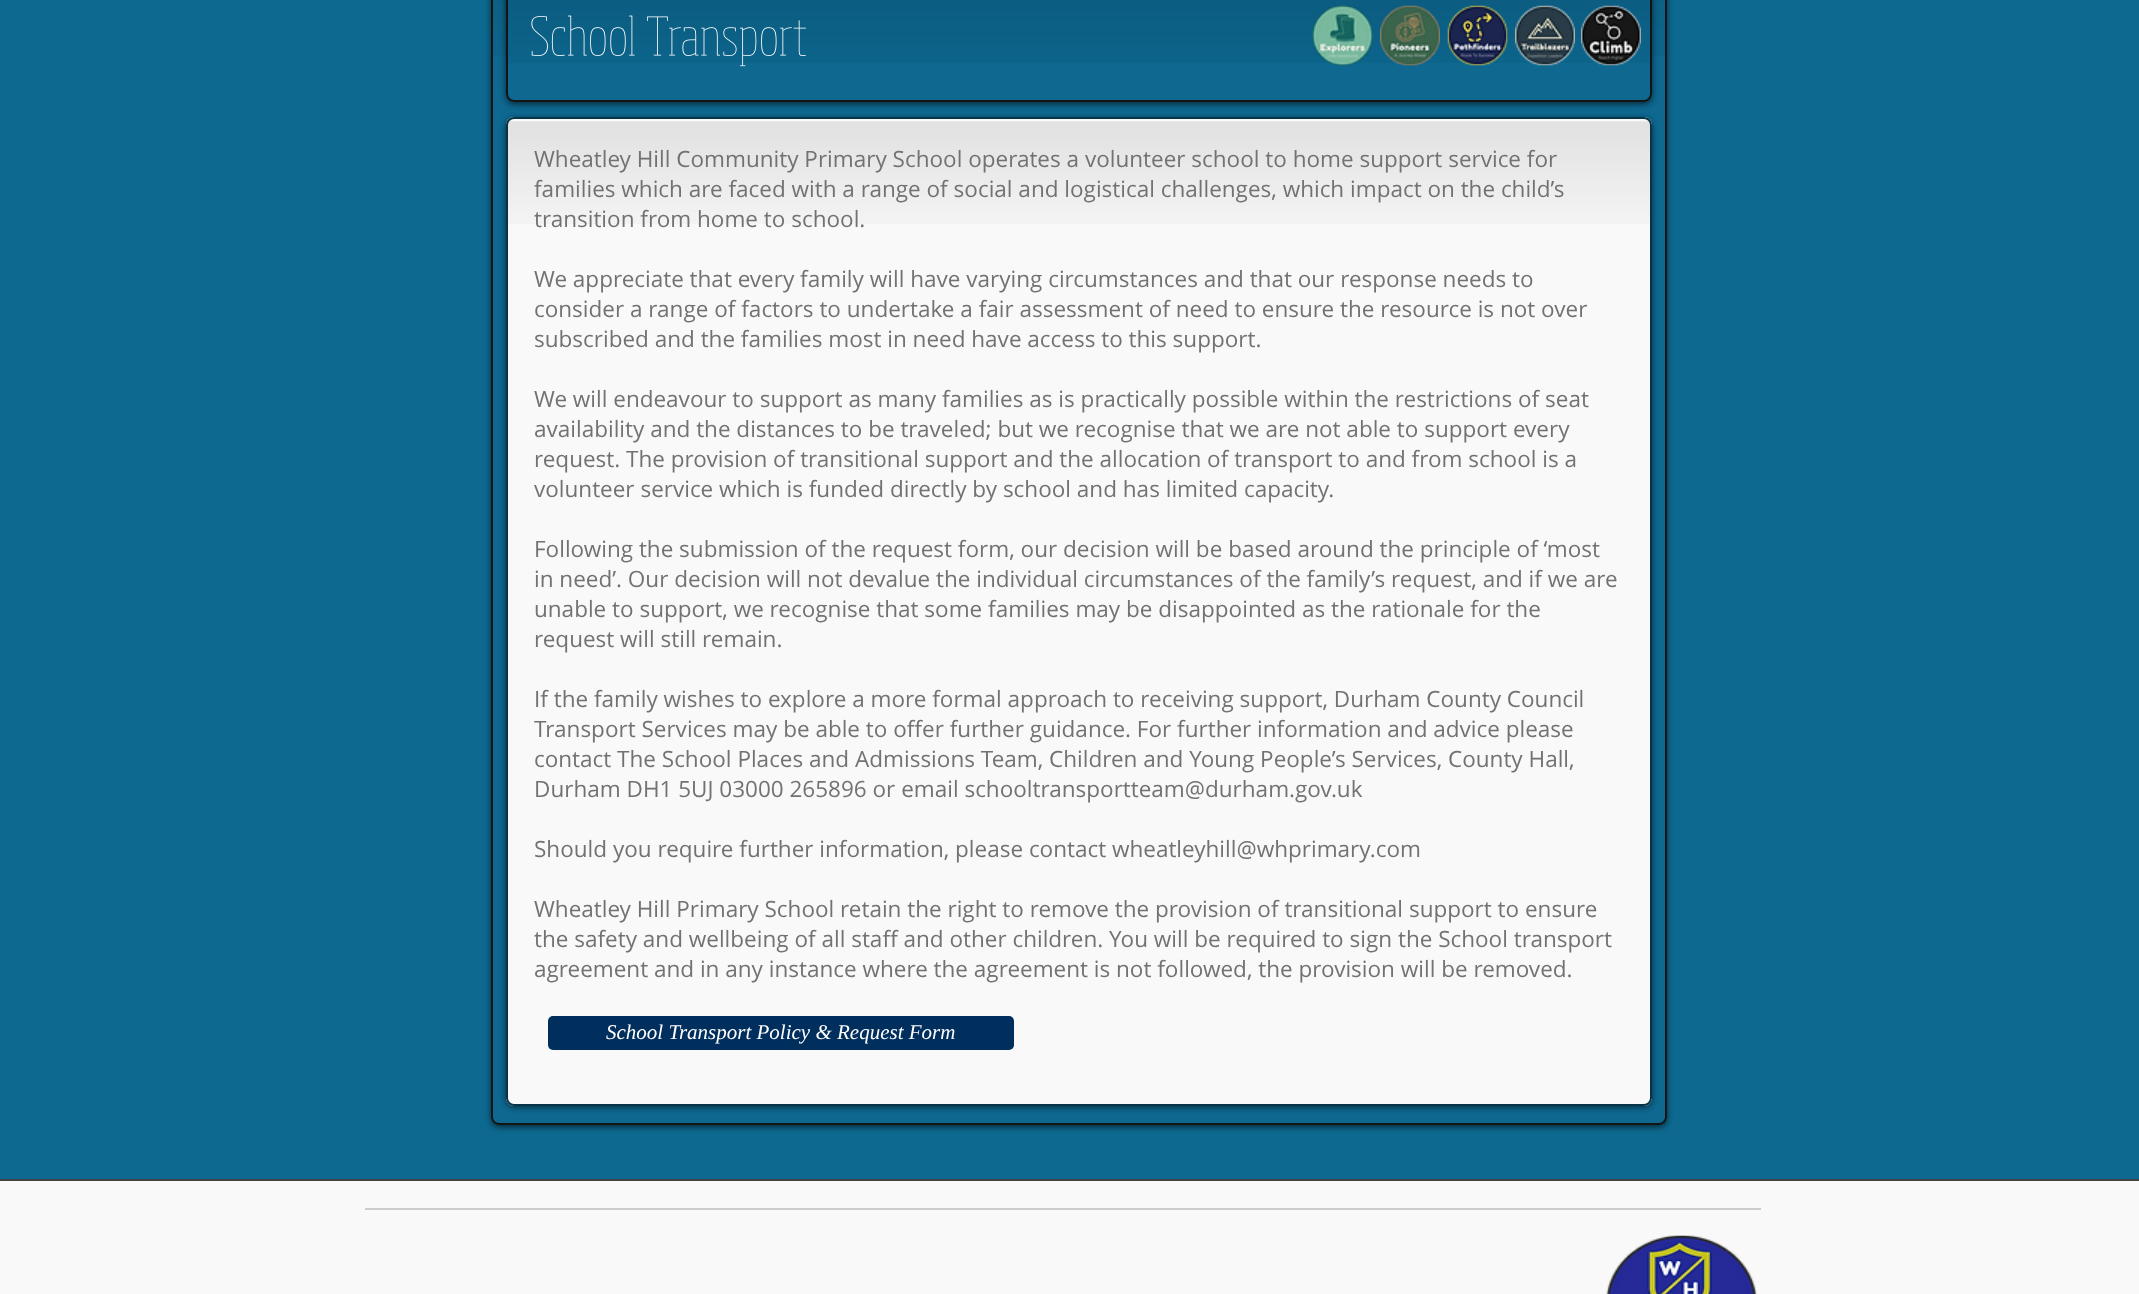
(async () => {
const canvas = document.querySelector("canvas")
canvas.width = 2139
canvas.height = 1294
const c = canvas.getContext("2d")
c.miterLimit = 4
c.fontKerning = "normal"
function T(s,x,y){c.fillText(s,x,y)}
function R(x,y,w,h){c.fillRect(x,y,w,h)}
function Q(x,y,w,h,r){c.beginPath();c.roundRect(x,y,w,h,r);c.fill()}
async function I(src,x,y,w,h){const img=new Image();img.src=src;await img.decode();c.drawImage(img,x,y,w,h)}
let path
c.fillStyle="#0e6990"
R(0,0,2139,1294)
c.save()
path = new Path2D("M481 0h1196v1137h-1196zm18-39h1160c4.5 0 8 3.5 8 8v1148c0 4.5-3.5 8-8 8h-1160c-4.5 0-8-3.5-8-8v-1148c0-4.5 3.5-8 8-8z")
c.clip(path,"evenodd")
c.fillStyle="#00000099"
c.filter="blur(3px)"
c.beginPath()
c.roundRect(491,-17,1176,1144,8)
c.fill()
c.filter="none"
c.restore()
c.fillStyle="#0e6990a1"
Q(491,-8,1176,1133,8)
await I("1.png",493,0,1172,56)
c.beginPath()
c.roundRect(492,-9,1174,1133,7)
c.strokeStyle="#141414"
c.lineWidth=2
c.stroke()
c.save()
path = new Path2D("M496 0h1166v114h-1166zm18-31h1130c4.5 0 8 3.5 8 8v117c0 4.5-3.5 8-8 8h-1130c-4.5 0-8-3.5-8-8v-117c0-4.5 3.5-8 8-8z")
c.clip(path,"evenodd")
c.fillStyle="#00000099"
c.filter="blur(3px)"
c.beginPath()
c.roundRect(506,-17,1146,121,8)
c.fill()
c.filter="none"
c.restore()
Q(506,-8,1146,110,8)
await I("2.png",508,0,1142,63)
c.beginPath()
c.roundRect(507,-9,1144,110,7)
c.stroke()
await I("3.png",531,15,275,52)
await I("4.png",1312,5,61,61)
await I("5.png",1380,5,60,61)
await I("6.png",1447,5,61,61)
await I("7.png",1515,5,60,61)
await I("8.png",1581,5,60,61)
c.fillStyle="#00000099"
c.filter="blur(3px)"
c.beginPath()
c.roundRect(506,119,1146,988,8)
c.fill()
c.filter="none"
c.fillStyle="#f9f9f9"
Q(506,117,1146,989,8)
await I("9.png",506,121,1145,103)
c.beginPath()
c.roundRect(507,118,1144,987,7)
c.strokeStyle="#073448"
c.stroke()
c.font="22.5px Open Sans"
c.fillStyle="#727272"
T("Wheatley Hill Community Primary School operates a volunteer school to home support service for",534,167)
T("families which are faced with a range of social and logistical challenges, which impact on the child’s",534,197)
T("transition from home to school.",534,227)
T("We appreciate that every family will have varying circumstances and that our response needs to",534,287)
T("consider a range of factors to undertake a fair assessment of need to ensure the resource is not over",534,317)
T("subscribed and the families most in need have access to this support.",534,347)
T("We will endeavour to support as many families as is practically possible within the restrictions of seat",534,407)
T("availability and the distances to be traveled; but we recognise that we are not able to support every",534,437)
T("request. The provision of transitional support and the allocation of transport to and from school is a",534,467)
T("volunteer service which is funded directly by school and has limited capacity.",534,497)
T("Following the submission of the request form, our decision will be based around the principle of ‘most",534,557)
T("in need’. Our decision will not devalue the individual circumstances of the family’s request, and if we are",534,587)
T("unable to support, we recognise that some families may be disappointed as the rationale for the",534,617)
T("request will still remain.",534,647)
T("If the family wishes to explore a more formal approach to receiving support, Durham County Council",534,707)
T("Transport Services may be able to offer further guidance. For further information and advice please",534,737)
T("contact The School Places and Admissions Team, Children and Young People’s Services, County Hall,",534,767)
T("Durham DH1 5UJ 03000 265896 or email schooltransportteam@durham.gov.uk",534,797)
T("Should you require further information, please contact wheatleyhill@whprimary.com",534,857)
T("Wheatley Hill Primary School retain the right to remove the provision of transitional support to ensure",534,917)
T("the safety and wellbeing of all staff and other children. You will be required to sign the School transport",534,947)
T("agreement and in any instance where the agreement is not followed, the provision will be removed.",534,977)
c.fillStyle="#002e5d"
Q(548,1016,466,34,5)
c.font="italic 21px Liberation Serif"
c.fillStyle="#fff"
T("School Transport Policy & Request Form",606,1039)
c.fillStyle="#f9f9f9"
R(0,1181,2139,113)
c.fillStyle="#424242"
R(0,1179,2139,2)
c.fillStyle="#cdcccc"
R(365,1208,1396,2)
await I("10.png",1606,1235,151,59)
})()
